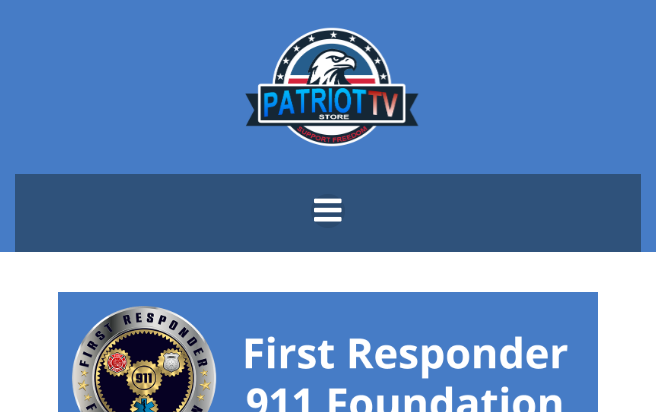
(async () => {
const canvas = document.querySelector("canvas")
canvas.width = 656
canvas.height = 412
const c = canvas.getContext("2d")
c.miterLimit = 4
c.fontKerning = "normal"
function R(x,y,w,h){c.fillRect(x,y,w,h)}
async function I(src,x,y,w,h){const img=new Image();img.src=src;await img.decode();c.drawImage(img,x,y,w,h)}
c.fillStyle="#fff"
R(0,0,656,412)
c.fillStyle="#467cc6"
R(0,0,656,252)
await I("1.png",245,27,174,120)
c.fillStyle="#2f527b"
R(15,174,626,78)
c.fillStyle="#2a4a6f"
c.beginPath()
c.arc(328,211,17,0,7)
c.fill()
await I("2.png",314,198,28,24)
c.fillStyle="#467cc6"
R(58,292,540,120)
await I("3.png",71,306,497,106)
})()
